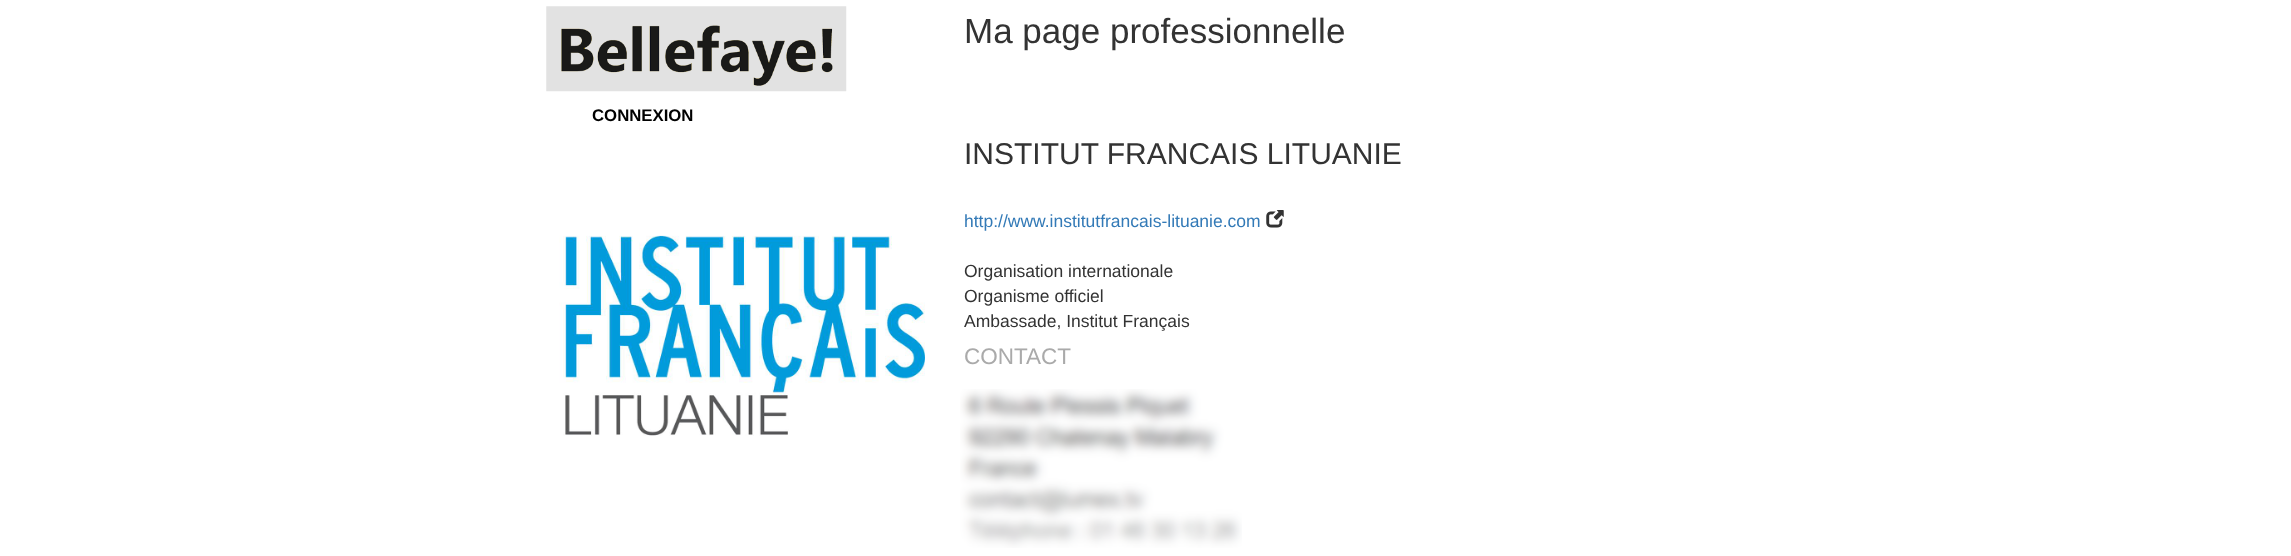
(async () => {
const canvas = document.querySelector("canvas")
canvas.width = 2291
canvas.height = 556
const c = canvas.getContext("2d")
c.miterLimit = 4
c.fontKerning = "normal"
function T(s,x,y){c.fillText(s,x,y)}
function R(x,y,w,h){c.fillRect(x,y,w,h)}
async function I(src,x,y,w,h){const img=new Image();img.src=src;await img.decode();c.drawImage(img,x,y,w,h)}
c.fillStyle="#fff"
R(0,0,2291,556)
await I("1.png",546,6,301,86)
c.font="35px Liberation Sans"
c.fillStyle="#333"
T("Ma page professionnelle",964,43)
c.font="bold 16.75px Liberation Sans"
c.fillStyle="#000"
T("CONNEXION",592,121)
await I("2.png",559,235,366,201)
c.font="30px Liberation Sans"
c.fillStyle="#333"
T("INSTITUT FRANCAIS LITUANIE",964,164)
c.font="17.5px Liberation Sans"
c.fillStyle="#337ab7"
T("http://www.institutfrancais-lituanie.com",964,227)
await I("3.png",1266,210,18,18)
c.fillStyle="#333"
T("Organisation internationale",964,277)
T("Organisme officiel",964,302)
T("Ambassade, Institut Français",964,327)
c.font="22.5px Liberation Sans"
c.fillStyle="#aaa"
T("CONTACT",964,364)
await I("4.png",960,389,282,159)
})()
